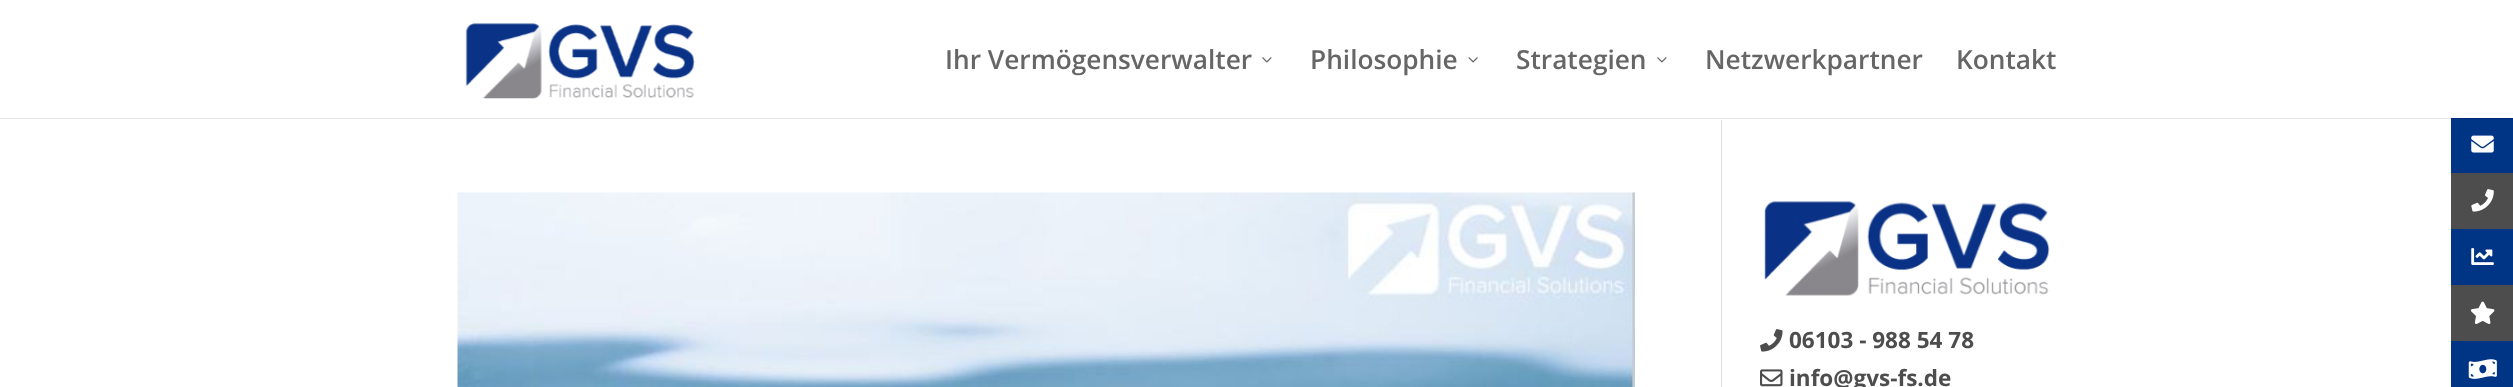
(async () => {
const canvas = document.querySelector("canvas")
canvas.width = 2513
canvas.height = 387
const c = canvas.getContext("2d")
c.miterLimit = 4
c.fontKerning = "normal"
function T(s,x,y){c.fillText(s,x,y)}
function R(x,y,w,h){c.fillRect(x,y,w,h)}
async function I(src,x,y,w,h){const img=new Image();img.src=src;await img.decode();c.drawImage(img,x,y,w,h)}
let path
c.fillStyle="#fff"
R(0,0,2513,387)
c.fillStyle="#003586"
R(2451,118,62,55)
c.fillStyle="#0000001a"
path = new Path2D("M0 118v1h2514v-118v117z")
c.fill(path)
await I("1.png",465,23,230,76)
c.font="600 26.25px Open Sans"
c.fillStyle="#666"
T("Ihr Vermögensverwalter",945,69)
await I("2.png",1262,57,10,6)
T("Philosophie",1310,69)
await I("3.png",1468,57,10,6)
T("Strategien",1516,69)
await I("2.png",1657,57,10,6)
T("Netzwerkpartner",1705,69)
T("Kontakt",1956,69)
c.fillStyle="#e2e2e2"
R(1721,120,1,267)
await I("4.png",457,192,1178,195)
await I("5.png",1764,201,286,95)
await I("6.png",1760,329,23,23)
c.font="bold 22.5px Open Sans"
c.fillStyle="#4d4d4d"
T("06103 - 988 54 78",1789,348)
await I("7.png",1760,369,23,18)
T("info@gvs-fs.de",1789,386)
await I("8.png",2471,135,23,18)
R(2451,173,62,56)
await I("9.png",2471,189,23,23)
c.fillStyle="#003586"
R(2451,229,62,56)
await I("10.png",2471,248,23,17)
c.fillStyle="#4d4d4d"
R(2451,285,62,56)
await I("11.png",2470,301,25,23)
c.fillStyle="#003586"
R(2451,341,62,46)
await I("12.png",2468,359,29,20)
})()
